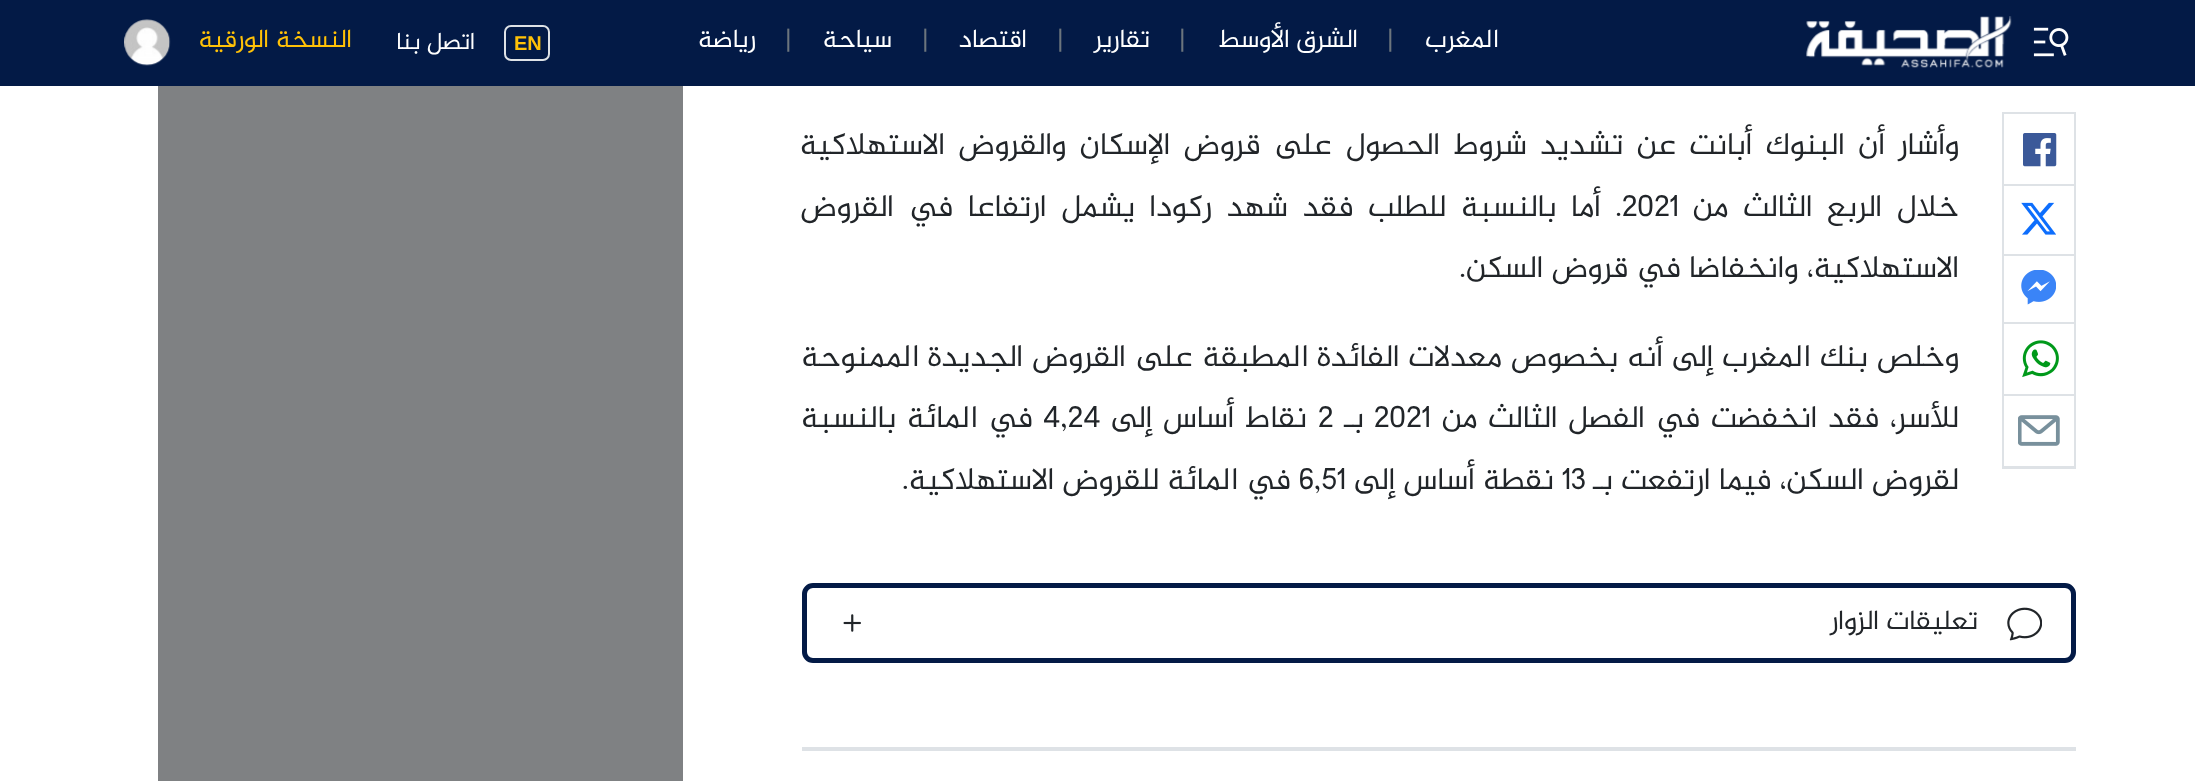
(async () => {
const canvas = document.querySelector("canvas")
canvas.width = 2195
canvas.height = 781
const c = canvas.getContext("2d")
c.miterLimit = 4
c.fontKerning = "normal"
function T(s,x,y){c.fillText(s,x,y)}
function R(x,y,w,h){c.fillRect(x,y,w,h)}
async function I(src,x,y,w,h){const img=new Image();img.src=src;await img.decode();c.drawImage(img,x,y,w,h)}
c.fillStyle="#fff"
R(0,0,2195,781)
c.fillStyle="#031a46"
R(0,0,2195,86)
await I("1.png",2033,27,36,30)
await I("2.png",1806,16,206,52)
c.direction="rtl"
c.font="26.25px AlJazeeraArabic"
c.fillStyle="#fff"
T("المغرب",1499,47)
c.direction="ltr"
c.fillStyle="#6c757d"
T("|",1387,47)
c.direction="rtl"
c.fillStyle="#fff"
T("الشرق الأوسط",1358,47)
c.direction="ltr"
c.fillStyle="#6c757d"
T("|",1179,47)
c.direction="rtl"
c.fillStyle="#fff"
T("تقارير",1150,47)
c.direction="ltr"
c.fillStyle="#6c757d"
T("|",1057,47)
c.direction="rtl"
c.fillStyle="#fff"
T("اقتصاد",1027,47)
c.direction="ltr"
c.fillStyle="#6c757d"
T("|",922,47)
c.direction="rtl"
c.fillStyle="#fff"
T("سياحة",892,47)
c.direction="ltr"
c.fillStyle="#6c757d"
T("|",785,47)
c.direction="rtl"
c.fillStyle="#fff"
T("رياضة",756,47)
c.beginPath()
c.roundRect(505,26,44,34,6)
c.strokeStyle="#dee2e6"
c.lineWidth=2
c.stroke()
c.direction="ltr"
c.font="bold 20px Liberation Sans"
c.fillStyle="#ffc107"
T("EN",514,50)
c.direction="rtl"
c.font="24.5px AlJazeeraArabic"
c.fillStyle="#fff"
T("اتصل بنا",475,49)
c.font="26.25px AlJazeeraArabic"
c.fillStyle="#ffc107"
T("النسخة الورقية",352,47)
await I("3.png",124,19,47,47)
c.strokeRect(2003,113,72,355)
c.fillStyle="#dee2e6"
R(2004,184,70,2)
await I("4.png",2023,133,34,34)
R(2004,254,70,2)
await I("5.png",2021,202,35,33)
R(2004,322,70,2)
await I("6.png",2021,270,35,35)
R(2004,394,70,2)
await I("7.png",2022,340,37,38)
R(2004,466,70,1)
await I("8.png",2018,415,42,31)
c.wordSpacing="5.25px"
c.font="31.5px AlJazeeraArabic"
c.fillStyle="#212529"
T("وأشار أن البنوك أبانت عن تشديد شروط الحصول على قروض الإسكان والقروض الاستهلاكية",1959,154)
c.wordSpacing="6.5px"
T("خلال الربع الثالث من",1959,216)
c.wordSpacing="0px"
c.direction="ltr"
T("2021",1622,216)
c.wordSpacing="6.5px"
c.direction="rtl"
T(". أما بالنسبة للطلب فقد شهد ركودا يشمل ارتفاعا في القروض",1622,216)
c.wordSpacing="0px"
T("الاستهلاكية، وانخفاضا في قروض السكن.",1959,277)
c.wordSpacing="0.8px"
T("وخلص بنك المغرب إلى أنه بخصوص معدلات الفائدة المطبقة على القروض الجديدة الممنوحة",1959,366)
c.wordSpacing="2.5px"
T("للأسر، فقد انخفضت في الفصل الثالث من",1959,427)
c.wordSpacing="0px"
c.direction="ltr"
T("2021",1374,427)
c.direction="rtl"
T("بـ",1364,427)
c.direction="ltr"
T("2",1318,427)
c.wordSpacing="2.5px"
c.direction="rtl"
T("نقاط أساس إلى",1307,427)
c.wordSpacing="0px"
c.direction="ltr"
T("4,24",1043,427)
c.wordSpacing="2.5px"
c.direction="rtl"
T("في المائة بالنسبة",1033,427)
c.wordSpacing="0px"
T("لقروض السكن، فيما ارتفعت بـ",1959,489)
c.direction="ltr"
T("13",1562,489)
c.direction="rtl"
T("نقطة أساس إلى",1554,489)
c.direction="ltr"
T("6,51",1299,489)
c.direction="rtl"
T("في المائة للقروض الاستهلاكية.",1291,489)
c.beginPath()
c.roundRect(804.5,585.5,1269,75,8.5)
c.strokeStyle="#031a46"
c.lineWidth=5
c.stroke()
await I("9.png",2007,607,35,34)
c.font="28px AlJazeeraArabic"
T("تعليقات الزوار",1978,629)
await I("10.png",843,614,18,18)
c.fillStyle="#dee2e6"
R(802,747,1274,4)
c.fillStyle="#7f8183"
R(158,86,525,695)
})()
